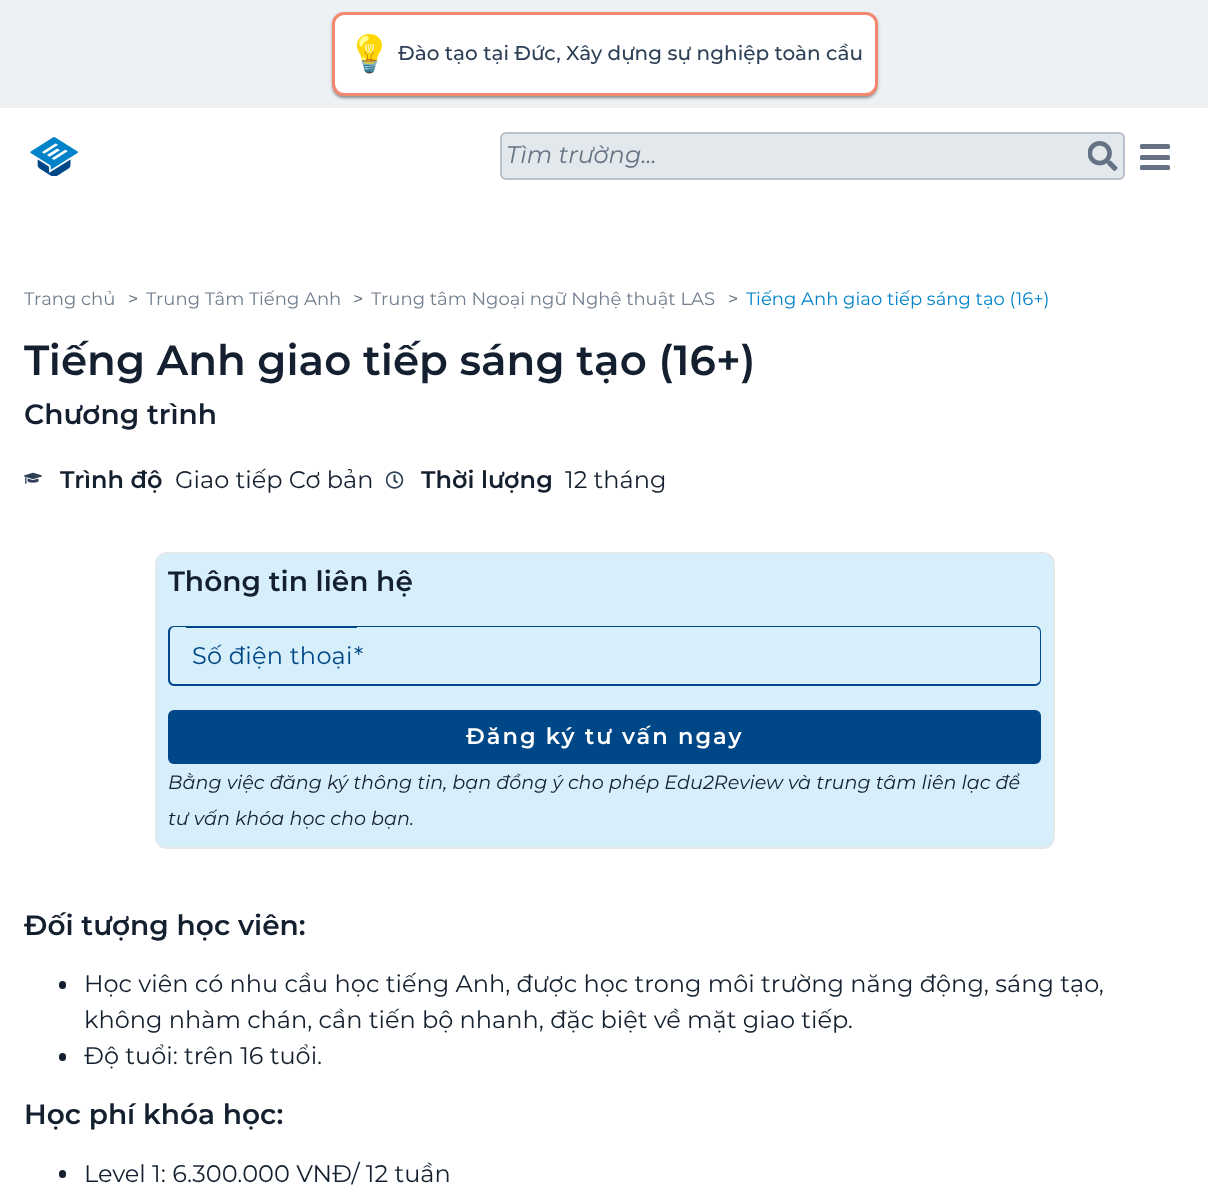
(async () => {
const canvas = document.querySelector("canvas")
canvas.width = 1208
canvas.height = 1185
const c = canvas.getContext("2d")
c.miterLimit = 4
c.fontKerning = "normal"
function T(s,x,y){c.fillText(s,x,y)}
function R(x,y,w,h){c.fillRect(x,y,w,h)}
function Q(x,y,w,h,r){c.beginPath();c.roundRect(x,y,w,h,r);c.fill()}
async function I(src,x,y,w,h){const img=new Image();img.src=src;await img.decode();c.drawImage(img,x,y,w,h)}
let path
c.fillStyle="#fff"
R(0,0,1208,1185)
c.fillStyle="#eef1f3"
R(0,0,1208,108)
c.fillStyle="#0000001f"
c.filter="blur(2px)"
c.beginPath()
c.roundRect(332,14,546,84,12)
c.fill()
c.filter="none"
c.fillStyle="#00000024"
c.filter="blur(1px)"
c.beginPath()
c.roundRect(332,14,546,84,12)
c.fill()
c.filter="none"
c.fillStyle="#00000033"
c.filter="blur(1px)"
c.beginPath()
c.roundRect(333,17,543,81,11)
c.fill()
c.filter="none"
c.fillStyle="#fff"
c.beginPath()
c.roundRect(333.5,13.5,543,81,10.5)
c.fill()
c.strokeStyle="#f48770"
c.lineWidth=3
c.stroke()
c.font="36px Noto Color Emoji"
c.fillStyle="#2d4057"
T("💡",347,66)
c.font="500 20px Montserrat"
T("Đào tạo tại Đức, Xây dựng sự nghiệp toàn cầu",398,60)
await I("1.png",30,137,48,39)
c.fillStyle="#e3e8ed"
c.beginPath()
c.roundRect(501,133,623,46,5)
c.fill()
c.strokeStyle="#b8c1cb"
c.lineWidth=2
c.stroke()
c.font="italic 24px Montserrat"
c.fillStyle="#647283"
T("Tìm trường...",506,163)
await I("2.png",1088,141,30,30)
Q(1140,144,30,5,1.5)
Q(1140,155,30,5,1.5)
Q(1140,165,30,5,1.5)
c.font="18px Montserrat"
c.fillStyle="#707e8e"
T("Trang chủ",24,305)
c.fillStyle="#546375"
T(">",128,305)
c.fillStyle="#707e8e"
T("Trung Tâm Tiếng Anh",146,305)
c.fillStyle="#546375"
T(">",353,305)
c.fillStyle="#707e8e"
T("Trung tâm Ngoại ngữ Nghệ thuật LAS",371,305)
c.fillStyle="#546375"
T(">",728,305)
c.fillStyle="#0083c9"
T("Tiếng Anh giao tiếp sáng tạo (16+)",746,305)
c.font="600 42px Montserrat"
c.fillStyle="#14202f"
T("Tiếng Anh giao tiếp sáng tạo (16+)",24,375)
c.font="600 28px Montserrat"
T("Chương trình",24,424)
await I("3.png",24,472,18,12)
c.font="600 24px Montserrat"
T("Trình độ",60,488)
c.font="24px Montserrat"
T("Giao tiếp Cơ bản",175,488)
await I("4.png",386,471,18,18)
c.font="600 24px Montserrat"
T("Thời lượng",421,488)
c.font="24px Montserrat"
T("12 tháng",565,488)
c.fillStyle="#d7effa"
c.beginPath()
c.roundRect(156,553,898,295,11)
c.fill()
c.strokeStyle="#e3e8ed"
c.stroke()
c.font="600 28px Montserrat"
c.fillStyle="#14202f"
T("Thông tin liên hệ",168,591)
c.fillStyle="#004788"
path = new Path2D("M174 626h12v60h-12c-3 0-6-3-6-6v-48c0-4 3-6 6-6zm0 1h12v57h-12c-2 0-4-2-4-4v-48c0-3 2-5 4-5z")
c.fill(path,"evenodd")
R(186,626,171,2)
R(186,684,171,2)
c.letterSpacing="0.25px"
c.font="24px Montserrat"
T("Số điện thoại",192,664)
path = new Path2D("M357 626h678c3 0 6 2 6 6v48c0 3-3 6-6 6h-678zm0 1h678c2 0 5 2 5 5v48c0 2-3 4-5 4h-678z")
c.fill(path,"evenodd")
T("*",354,664)
Q(168,710,873,54,6)
c.letterSpacing="2px"
c.font="600 22.5px Montserrat"
c.fillStyle="#fff"
T("Đăng ký tư vấn ngay",466,744)
c.letterSpacing="0px"
c.font="italic 19.2px Montserrat"
c.fillStyle="#14202f"
T("Bằng việc đăng ký thông tin, bạn đồng ý cho phép Edu2Review và trung tâm liên lạc để",168,789)
T("tư vấn khóa học cho bạn.",168,825)
c.font="600 28px Montserrat"
T("Đối tượng học viên:",24,935)
Q(59,981,7,8,3.5)
c.font="24px Montserrat"
T("Học viên có nhu cầu học tiếng Anh, được học trong môi trường năng động, sáng tạo,",84,992)
T("không nhàm chán, cần tiến bộ nhanh, đặc biệt về mặt giao tiếp.",84,1028)
Q(59,1053,7,8,3.5)
T("Độ tuổi: trên 16 tuổi.",84,1064)
c.font="600 28px Montserrat"
T("Học phí khóa học:",24,1124)
Q(59,1170,7,8,3.5)
c.font="24px Montserrat"
T("Level 1: 6.300.000 VNĐ/ 12 tuần",84,1182)
})()
